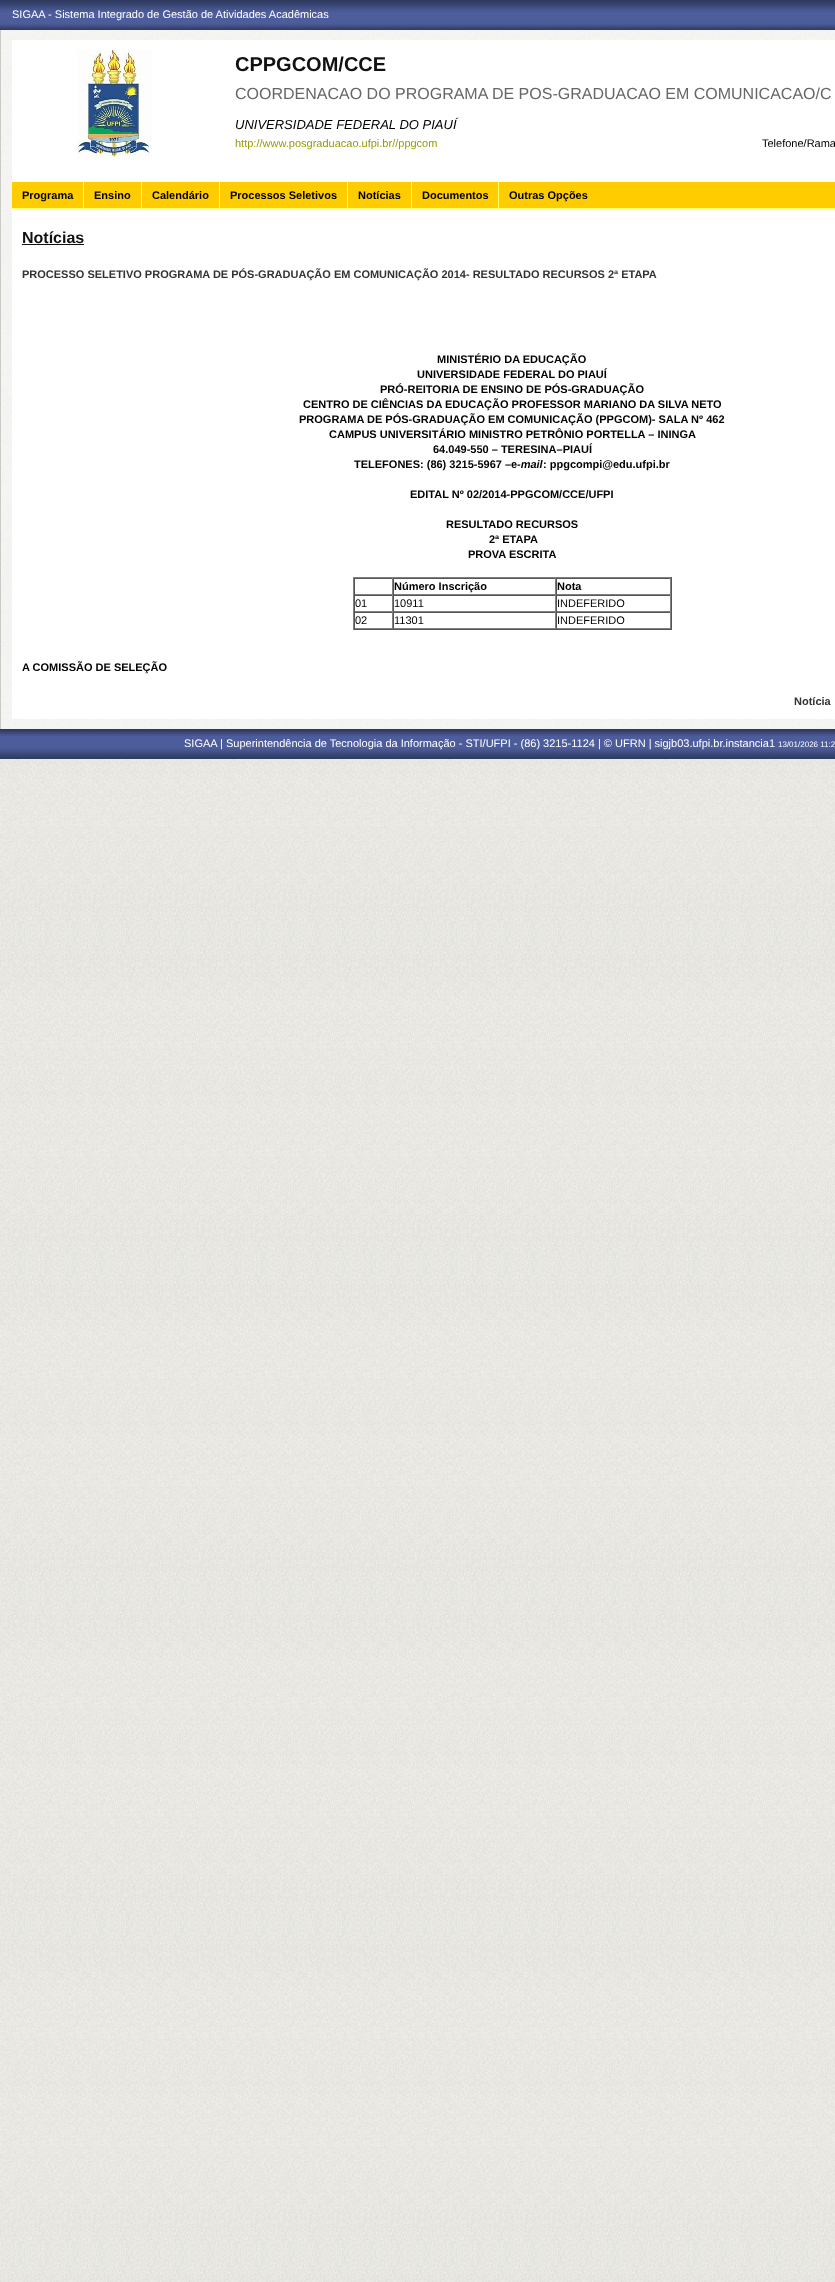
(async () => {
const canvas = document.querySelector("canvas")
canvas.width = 835
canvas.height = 2282
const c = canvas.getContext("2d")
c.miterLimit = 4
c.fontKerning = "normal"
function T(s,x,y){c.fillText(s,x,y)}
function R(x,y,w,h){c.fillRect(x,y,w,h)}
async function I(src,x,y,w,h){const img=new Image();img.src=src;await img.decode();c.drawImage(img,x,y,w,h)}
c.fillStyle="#fff"
R(0,0,835,2282)
await I("1.png",0,759,835,1523)
await I("2.png",0,0,835,30)
await I("3.png",0,729,835,30)
c.font="11px Liberation Sans"
T("SIGAA - Sistema Integrado de Gestão de Atividades Acadêmicas",12,18)
await I("4.png",1,30,834,699)
c.fillStyle="#cacac7"
R(0,30,1,699)
c.fillStyle="#fff"
R(12,40,823,679)
await I("5.png",77,50,75,110)
c.font="bold 20px Liberation Sans"
c.fillStyle="#111"
T("CPPGCOM/CCE",235,71)
c.font="16px Liberation Sans"
c.fillStyle="#666"
T("COORDENACAO DO PROGRAMA DE POS-GRADUACAO EM COMUNICACAO/C",235,99)
c.font="italic 13px Liberation Sans"
c.fillStyle="#000"
T("UNIVERSIDADE FEDERAL DO PIAUÍ",235,129)
c.font="11px Liberation Sans"
c.fillStyle="#990"
T("http://www.posgraduacao.ufpi.br//ppgcom",235,147)
c.fillStyle="#000"
T("Telefone/Rama",762,147)
c.fillStyle="#fc0"
R(12,182,823,26)
c.fillStyle="#ff6"
R(12,208,823,1)
c.font="bold 11px Liberation Sans"
c.fillStyle="#000"
T("Programa",22,199)
c.fillStyle="#ff6"
R(83,182,1,27)
c.fillStyle="#000"
T("Ensino",94,199)
c.fillStyle="#ff6"
R(141,182,1,27)
c.fillStyle="#000"
T("Calendário",152,199)
c.fillStyle="#ff6"
R(219,182,1,27)
c.fillStyle="#000"
T("Processos Seletivos",230,199)
c.fillStyle="#ff6"
R(347,182,1,27)
c.fillStyle="#000"
T("Notícias",358,199)
c.fillStyle="#ff6"
R(411,182,1,27)
c.fillStyle="#000"
T("Documentos",422,199)
c.fillStyle="#ff6"
R(498,182,1,27)
c.fillStyle="#000"
T("Outras Opções",509,199)
c.font="bold 16px Liberation Sans"
c.fillStyle="#111"
T("Notícias",22,243)
R(22,244,62,1)
c.font="bold 11px Liberation Sans"
c.fillStyle="#333"
T("PROCESSO SELETIVO PROGRAMA DE PÓS-GRADUAÇÃO EM COMUNICAÇÃO 2014- RESULTADO RECURSOS 2ª ETAPA",22,278)
c.fillStyle="#000"
T("MINISTÉRIO DA EDUCAÇÃO",437,363)
T("UNIVERSIDADE FEDERAL DO PIAUÍ",417,378)
T("PRÓ-REITORIA DE ENSINO DE PÓS-GRADUAÇÃO",380,393)
T("CENTRO DE CIÊNCIAS DA EDUCAÇÃO PROFESSOR MARIANO DA SILVA NETO",303,408)
T("PROGRAMA DE PÓS-GRADUAÇÃO EM COMUNICAÇÃO (PPGCOM)- SALA Nº 462",299,423)
T("CAMPUS UNIVERSITÁRIO MINISTRO PETRÔNIO PORTELLA – ININGA",329,438)
T("64.049-550 – TERESINA–PIAUÍ",433,453)
T("TELEFONES: (86) 3215-5967 –e",354,468)
c.font="italic bold 11px Liberation Sans"
T("-mail",517,468)
c.font="bold 11px Liberation Sans"
T(": ppgcompi@edu.ufpi.br",543,468)
T("EDITAL Nº 02/2014-PPGCOM/CCE/UFPI",410,498)
T("RESULTADO RECURSOS",446,528)
T("2ª ETAPA",489,543)
T("PROVA ESCRITA",468,558)
c.fillStyle="#808080"
R(353,577,319,1)
c.fillStyle="#555"
R(671,577,1,53)
R(353,629,319,1)
c.fillStyle="#808080"
R(353,577,1,53)
c.fillStyle="#555"
R(354,578,317,1)
c.fillStyle="#808080"
R(392,578,1,17)
R(354,594,39,1)
c.fillStyle="#555"
R(354,578,1,17)
c.fillStyle="#808080"
R(555,578,1,17)
R(393,594,163,1)
c.fillStyle="#555"
R(393,578,1,17)
c.fillStyle="#000"
T("Número Inscrição",394,590)
c.fillStyle="#808080"
R(670,578,1,17)
R(556,594,115,1)
c.fillStyle="#555"
R(556,578,1,17)
c.fillStyle="#000"
T("Nota",557,590)
c.fillStyle="#555"
R(354,595,317,1)
c.fillStyle="#808080"
R(392,595,1,17)
R(354,611,39,1)
c.fillStyle="#555"
R(354,595,1,17)
c.font="11px Liberation Sans"
c.fillStyle="#000"
T("01",355,607)
c.fillStyle="#808080"
R(555,595,1,17)
R(393,611,163,1)
c.fillStyle="#555"
R(393,595,1,17)
c.fillStyle="#000"
T("10911",394,607)
c.fillStyle="#808080"
R(670,595,1,17)
R(556,611,115,1)
c.fillStyle="#555"
R(556,595,1,17)
c.fillStyle="#000"
T("INDEFERIDO",557,607)
c.fillStyle="#555"
R(354,612,317,1)
c.fillStyle="#808080"
R(392,612,1,17)
R(354,628,39,1)
c.fillStyle="#555"
R(354,612,1,17)
c.fillStyle="#000"
T("02",355,624)
c.fillStyle="#808080"
R(555,612,1,17)
R(393,628,163,1)
c.fillStyle="#555"
R(393,612,1,17)
c.fillStyle="#000"
T("11301",394,624)
c.fillStyle="#808080"
R(670,612,1,17)
R(556,628,115,1)
c.fillStyle="#555"
R(556,612,1,17)
c.fillStyle="#000"
T("INDEFERIDO",557,624)
c.font="bold 11px Liberation Sans"
T("A COMISSÃO DE SELEÇÃO",22,671)
c.fillStyle="#333"
T("Notícia",794,705)
c.font="11px Liberation Sans"
c.fillStyle="#fff"
T("SIGAA | Superintendência de Tecnologia da Informação - STI/UFPI - (86) 3215-1124 | © UFRN | sigjb03.ufpi.br.instancia1",184,747)
c.font="8px Liberation Sans"
T("13/01/2026 11:2",778,747)
})()
